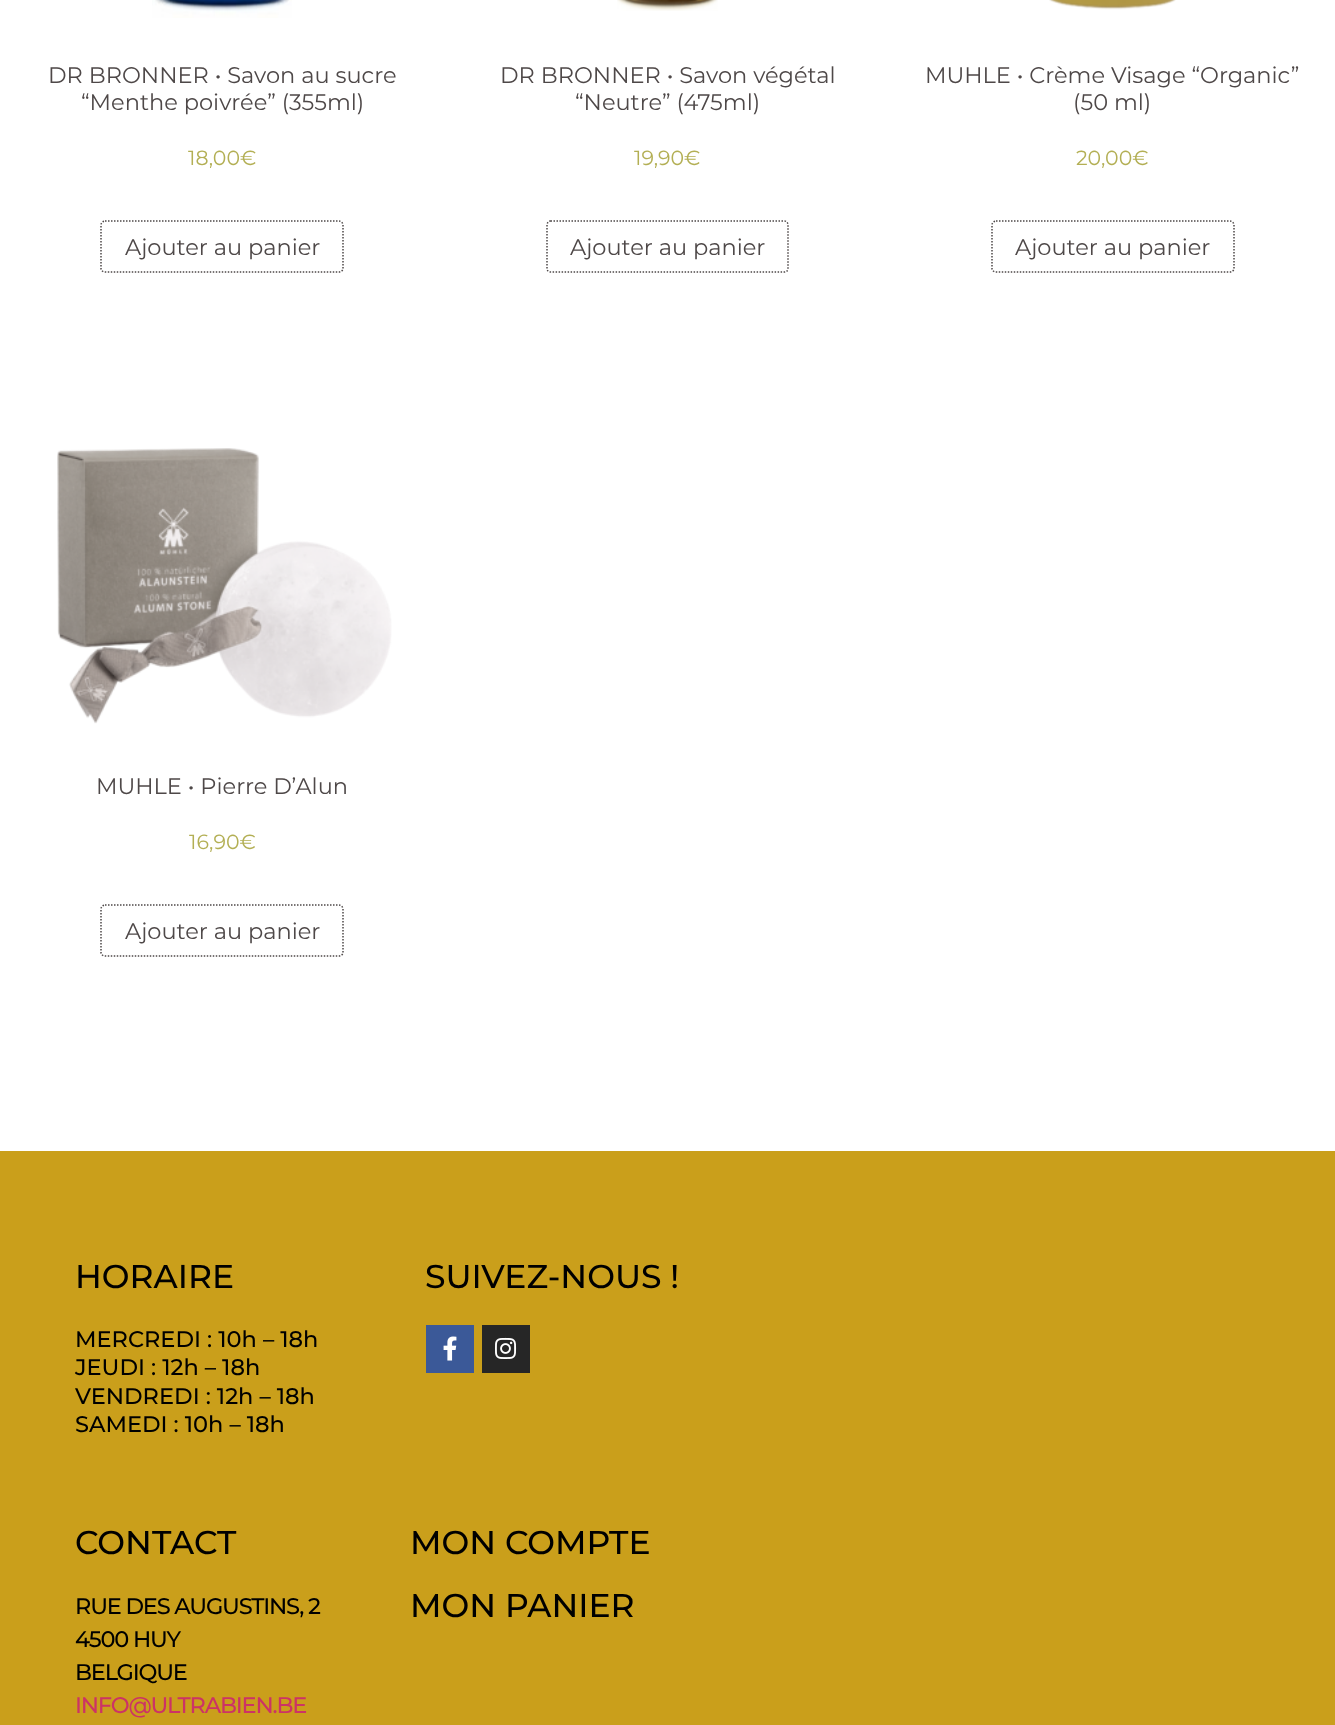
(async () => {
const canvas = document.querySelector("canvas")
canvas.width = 1335
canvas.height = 1725
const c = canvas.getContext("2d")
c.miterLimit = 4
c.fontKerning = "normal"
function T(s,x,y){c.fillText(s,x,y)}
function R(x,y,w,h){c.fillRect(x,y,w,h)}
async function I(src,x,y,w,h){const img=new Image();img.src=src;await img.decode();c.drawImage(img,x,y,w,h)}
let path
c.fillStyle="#fff"
R(0,0,1335,1725)
await I("1.png",152,0,140,18)
c.font="22.5px Montserrat"
c.fillStyle="#4e4848"
T("DR BRONNER • Savon au sucre",48,83)
T("“Menthe poivrée” (355ml)",81,110)
c.font="20.5px Montserrat"
c.fillStyle="#b3af54"
T("18,00€",188,165)
path = new Path2D("M105 221h234c2 0 4 2 4 4v43.5c0 2-2 3.5-4 3.5h-234c-2 0-4-1.5-4-3.5v-43.5c0-2 2-4 4-4z")
c.strokeStyle="#4e4848"
c.lineWidth=1.5
c.setLineDash([1.5,1.5])
c.stroke(path)
c.font="22.5px Montserrat"
c.fillStyle="#4e4848"
T("Ajouter au panier",125,255)
await I("2.png",617,0,101,11)
T("DR BRONNER • Savon végétal",500,83)
T("“Neutre” (475ml)",575,110)
c.font="20.5px Montserrat"
c.fillStyle="#b3af54"
T("19,90€",634,165)
path = new Path2D("M550.5 221h234c2 0 3.5 2 3.5 4v43.5c0 2-1.5 3.5-3.5 3.5h-234c-2 0-3.5-1.5-3.5-3.5v-43.5c0-2 1.5-4 3.5-4z")
c.stroke(path)
c.font="22.5px Montserrat"
c.fillStyle="#4e4848"
T("Ajouter au panier",570,255)
await I("3.png",1049,0,127,10)
T("MUHLE • Crème Visage “Organic”",925,83)
T("(50 ml)",1073,110)
c.font="20.5px Montserrat"
c.fillStyle="#b3af54"
T("20,00€",1076,165)
path = new Path2D("M996 221h234c2 0 4 2 4 4v43.5c0 2-2 3.5-4 3.5h-234c-2 0-4-1.5-4-3.5v-43.5c0-2 2-4 4-4z")
c.stroke(path)
c.font="22.5px Montserrat"
c.fillStyle="#4e4848"
T("Ajouter au panier",1015,255)
await I("4.png",57,448,335,276)
T("MUHLE • Pierre D’Alun",96,794)
c.font="20.5px Montserrat"
c.fillStyle="#b3af54"
T("16,90€",189,849)
path = new Path2D("M105 905h234c2 0 4 2 4 4v43.5c0 2-2 3.5-4 3.5h-234c-2 0-4-1.5-4-3.5v-43.5c0-2 2-4 4-4z")
c.stroke(path)
c.font="22.5px Montserrat"
c.fillStyle="#4e4848"
T("Ajouter au panier",125,939)
c.fillStyle="#ca9f1b"
R(0,1151,1335,574)
c.font="500 33px Montserrat"
c.fillStyle="#000"
T("HORAIRE",75,1288)
c.font="500 22.5px Montserrat"
T("MERCREDI : 10h – 18h",75,1347)
T("JEUDI : 12h – 18h",75,1375)
T("VENDREDI : 12h – 18h",75,1404)
T("SAMEDI : 10h – 18h",75,1432)
c.font="500 33px Montserrat"
T("SUIVEZ-NOUS !",425,1288)
c.fillStyle="#3b5998"
R(426,1325,48,48)
await I("5.png",443,1336,14,25)
c.fillStyle="#262626"
R(482,1325,48,48)
await I("6.png",495,1337,22,22)
c.fillStyle="#000"
T("CONTACT",75,1554)
c.letterSpacing="-1.2px"
c.font="500 22.5px Montserrat"
T("RUE DES AUGUSTINS, 2",75,1614)
T("4500 HUY",75,1647)
T("BELGIQUE",75,1680)
c.fillStyle="#c36"
T("INFO@ULTRABIEN.BE",75,1713)
c.letterSpacing="0px"
c.font="500 33px Montserrat"
c.fillStyle="#000"
T("MON COMPTE",410,1554)
T("MON PANIER",410,1617)
})()
